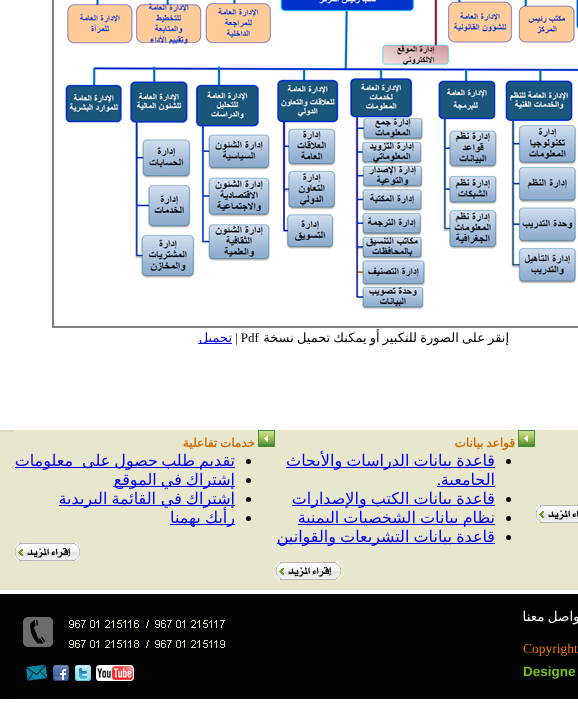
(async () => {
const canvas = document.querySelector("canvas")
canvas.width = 578
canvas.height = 703
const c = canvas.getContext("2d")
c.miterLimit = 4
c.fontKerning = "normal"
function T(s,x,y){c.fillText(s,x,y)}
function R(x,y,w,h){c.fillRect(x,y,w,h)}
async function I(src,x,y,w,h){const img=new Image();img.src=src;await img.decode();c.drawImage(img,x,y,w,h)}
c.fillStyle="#fff"
R(0,0,578,703)
c.strokeStyle="#808080"
c.lineWidth=2
c.strokeRect(53,-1,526,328)
await I("1.png",65,0,513,310)
c.wordSpacing="-1px"
c.direction="rtl"
c.font="13px DejaVu Sans"
c.fillStyle="#000"
T("إنقر على الصورة للتكبير أو يمكنك تحميل نسخة",509,342)
c.wordSpacing="0px"
c.direction="ltr"
c.font="13px Liberation Serif"
T("| Pdf",235,342)
c.fillStyle="#00e"
R(198,343,34,1)
c.direction="rtl"
c.font="13px DejaVu Sans"
T("تحميل",232,342)
c.fillStyle="#e9e6ce"
R(14,430,564,160)
await I("2.png",518,430,17,17)
c.wordSpacing="-1px"
c.font="bold 12px DejaVu Sans"
c.fillStyle="#ce6c04"
T("قواعد بيانات",515,447)
await I("2.png",258,430,17,17)
T("خدمات تفاعلية",255,447)
await I("3.png",536,505,42,18)
c.fillStyle="#000"
c.beginPath()
c.arc(508.5,461.5,2.5,0,7)
c.fill()
c.fillStyle="#00e"
R(286,467,209,1)
c.font="16px DejaVu Sans"
T("قاعدة بيانات الدراسات والأبحاث",495,466)
R(437,486,58,1)
c.wordSpacing="0px"
T("الجامعية",495,485)
c.font="16px Liberation Serif"
T(".",441,485)
c.fillStyle="#000"
c.beginPath()
c.arc(508.5,499.5,2.5,0,7)
c.fill()
c.fillStyle="#00e"
R(292,505,203,1)
c.wordSpacing="-1px"
c.font="16px DejaVu Sans"
T("قاعدة بيانات الكتب والإصدارات",495,504)
c.fillStyle="#000"
c.beginPath()
c.arc(508.5,518.5,2.5,0,7)
c.fill()
c.fillStyle="#00e"
R(298,524,197,1)
T("نظام بيانات الشخصيات اليمنية",495,523)
c.fillStyle="#000"
c.beginPath()
c.arc(508.5,537.5,2.5,0,7)
c.fill()
c.fillStyle="#00e"
R(277,543,218,1)
T("قاعدة بيانات التشريعات والقوانين",495,542)
await I("4.png",276,562,65,18)
c.fillStyle="#000"
c.beginPath()
c.arc(248.5,461.5,2.5,0,7)
c.fill()
c.fillStyle="#00e"
R(15,467,220,1)
T("تقديم طلب",235,466)
T("حصول على",158,466)
c.wordSpacing="0px"
T("معلومات",73,466)
c.fillStyle="#000"
c.beginPath()
c.arc(248.5,480.5,2.5,0,7)
c.fill()
c.fillStyle="#00e"
R(113,486,122,1)
c.wordSpacing="-1px"
T("إشتراك في الموقع",235,485)
c.fillStyle="#000"
c.beginPath()
c.arc(248.5,499.5,2.5,0,7)
c.fill()
c.fillStyle="#00e"
R(59,505,176,1)
T("إشتراك في",235,504)
T("القائمة البريدية",156,504)
c.fillStyle="#000"
c.beginPath()
c.arc(248.5,518.5,2.5,0,7)
c.fill()
c.fillStyle="#00e"
R(170,524,65,1)
T("رأيك يهمنا",235,523)
await I("4.png",15,543,65,18)
await I("5.png",0,430,14,160)
await I("6.png",523,593,55,106)
c.font="13.5px DejaVu Sans"
c.fillStyle="#fff"
T("تواصل معنا",584,621)
c.wordSpacing="0px"
c.direction="ltr"
c.font="13.5px Liberation Serif"
c.fillStyle="#e97705"
T("Copyright",523,653)
c.font="bold 13.5px Liberation Sans"
c.fillStyle="#7dc012"
T("Designe",523,676)
await I("7.png",325,593,198,106)
await I("8.png",14,686,311,13)
await I("9.png",14,593,311,93)
c.fillStyle="#030305"
R(0,594,14,105)
})()
